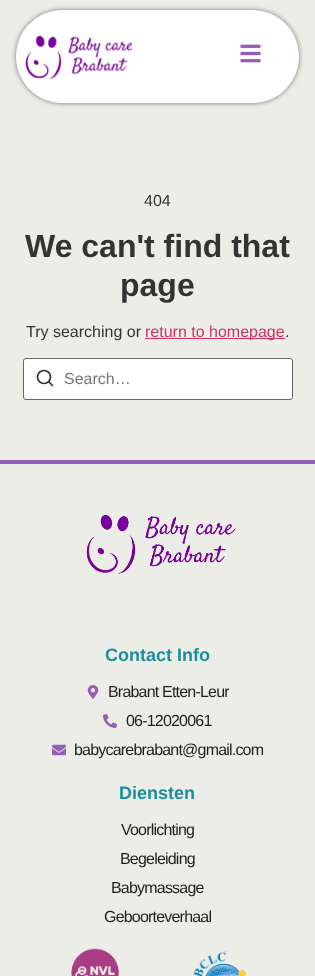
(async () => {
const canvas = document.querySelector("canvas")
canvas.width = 315
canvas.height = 976
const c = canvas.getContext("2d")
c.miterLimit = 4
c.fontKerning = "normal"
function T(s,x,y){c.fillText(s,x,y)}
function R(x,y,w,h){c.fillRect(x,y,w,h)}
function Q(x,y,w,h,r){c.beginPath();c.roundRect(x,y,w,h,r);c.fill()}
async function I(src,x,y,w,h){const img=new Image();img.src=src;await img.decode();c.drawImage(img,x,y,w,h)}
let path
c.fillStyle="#ecede7"
R(0,0,315,976)
c.fillStyle="#00000080"
c.filter="blur(2.5px)"
c.beginPath()
c.roundRect(16,10,283,93,46.5)
c.fill()
c.filter="none"
c.fillStyle="#fff"
Q(16,10,283,93,46.5)
await I("1.png",25,35,107,45)
await I("2.png",240,44,21,19)
c.font="16px Liberation Sans"
c.fillStyle="#333"
T("404",144,206)
c.font="bold 32px Liberation Sans"
T("We can't find that",25,257)
T("page",120,296)
c.font="16px Liberation Sans"
T("Try searching or",26,337)
c.fillStyle="#c36"
R(145,338,140,1)
T("return to homepage",145,337)
c.fillStyle="#333"
T(".",285,337)
c.fillStyle="#fff"
c.beginPath()
c.roundRect(23.5,358.5,269,41,2.5)
c.fill()
c.strokeStyle="#666"
c.stroke()
c.beginPath()
c.arc(44,377,6.5,0,7)
c.strokeStyle="#333"
c.lineWidth=1.7
c.stroke()
path = new Path2D("M52.5 385.5l-3.5-3.5")
c.lineCap="round"
c.lineJoin="round"
c.stroke(path)
c.fillStyle="#757575"
T("Search…",64,384)
c.fillStyle="#965db5"
R(0,460,315,4)
await I("3.png",86,514,150,60)
c.font="bold 18px Liberation Sans"
c.fillStyle="#198f9e"
T("Contact Info",105,661)
await I("4.png",87,685,12,14)
c.letterSpacing="-0.8px"
c.font="16px Liberation Sans"
c.fillStyle="#1f1f1f"
T("Brabant Etten-Leur",108,697)
await I("5.png",103,714,14,14)
T("06-12020061",126,726)
await I("6.png",52,744,14,12)
T("babycarebrabant@gmail.com",74,755)
c.letterSpacing="0px"
c.font="bold 18px Liberation Sans"
c.fillStyle="#198f9e"
T("Diensten",119,799)
c.letterSpacing="-0.8px"
c.font="16px Liberation Sans"
c.fillStyle="#1f1f1f"
T("Voorlichting",121,835)
T("Begeleiding",120,864)
T("Babymassage",111,893)
T("Geboorteverhaal",104,922)
await I("7.png",71,948,48,28)
await I("8.png",193,950,54,26)
})()
